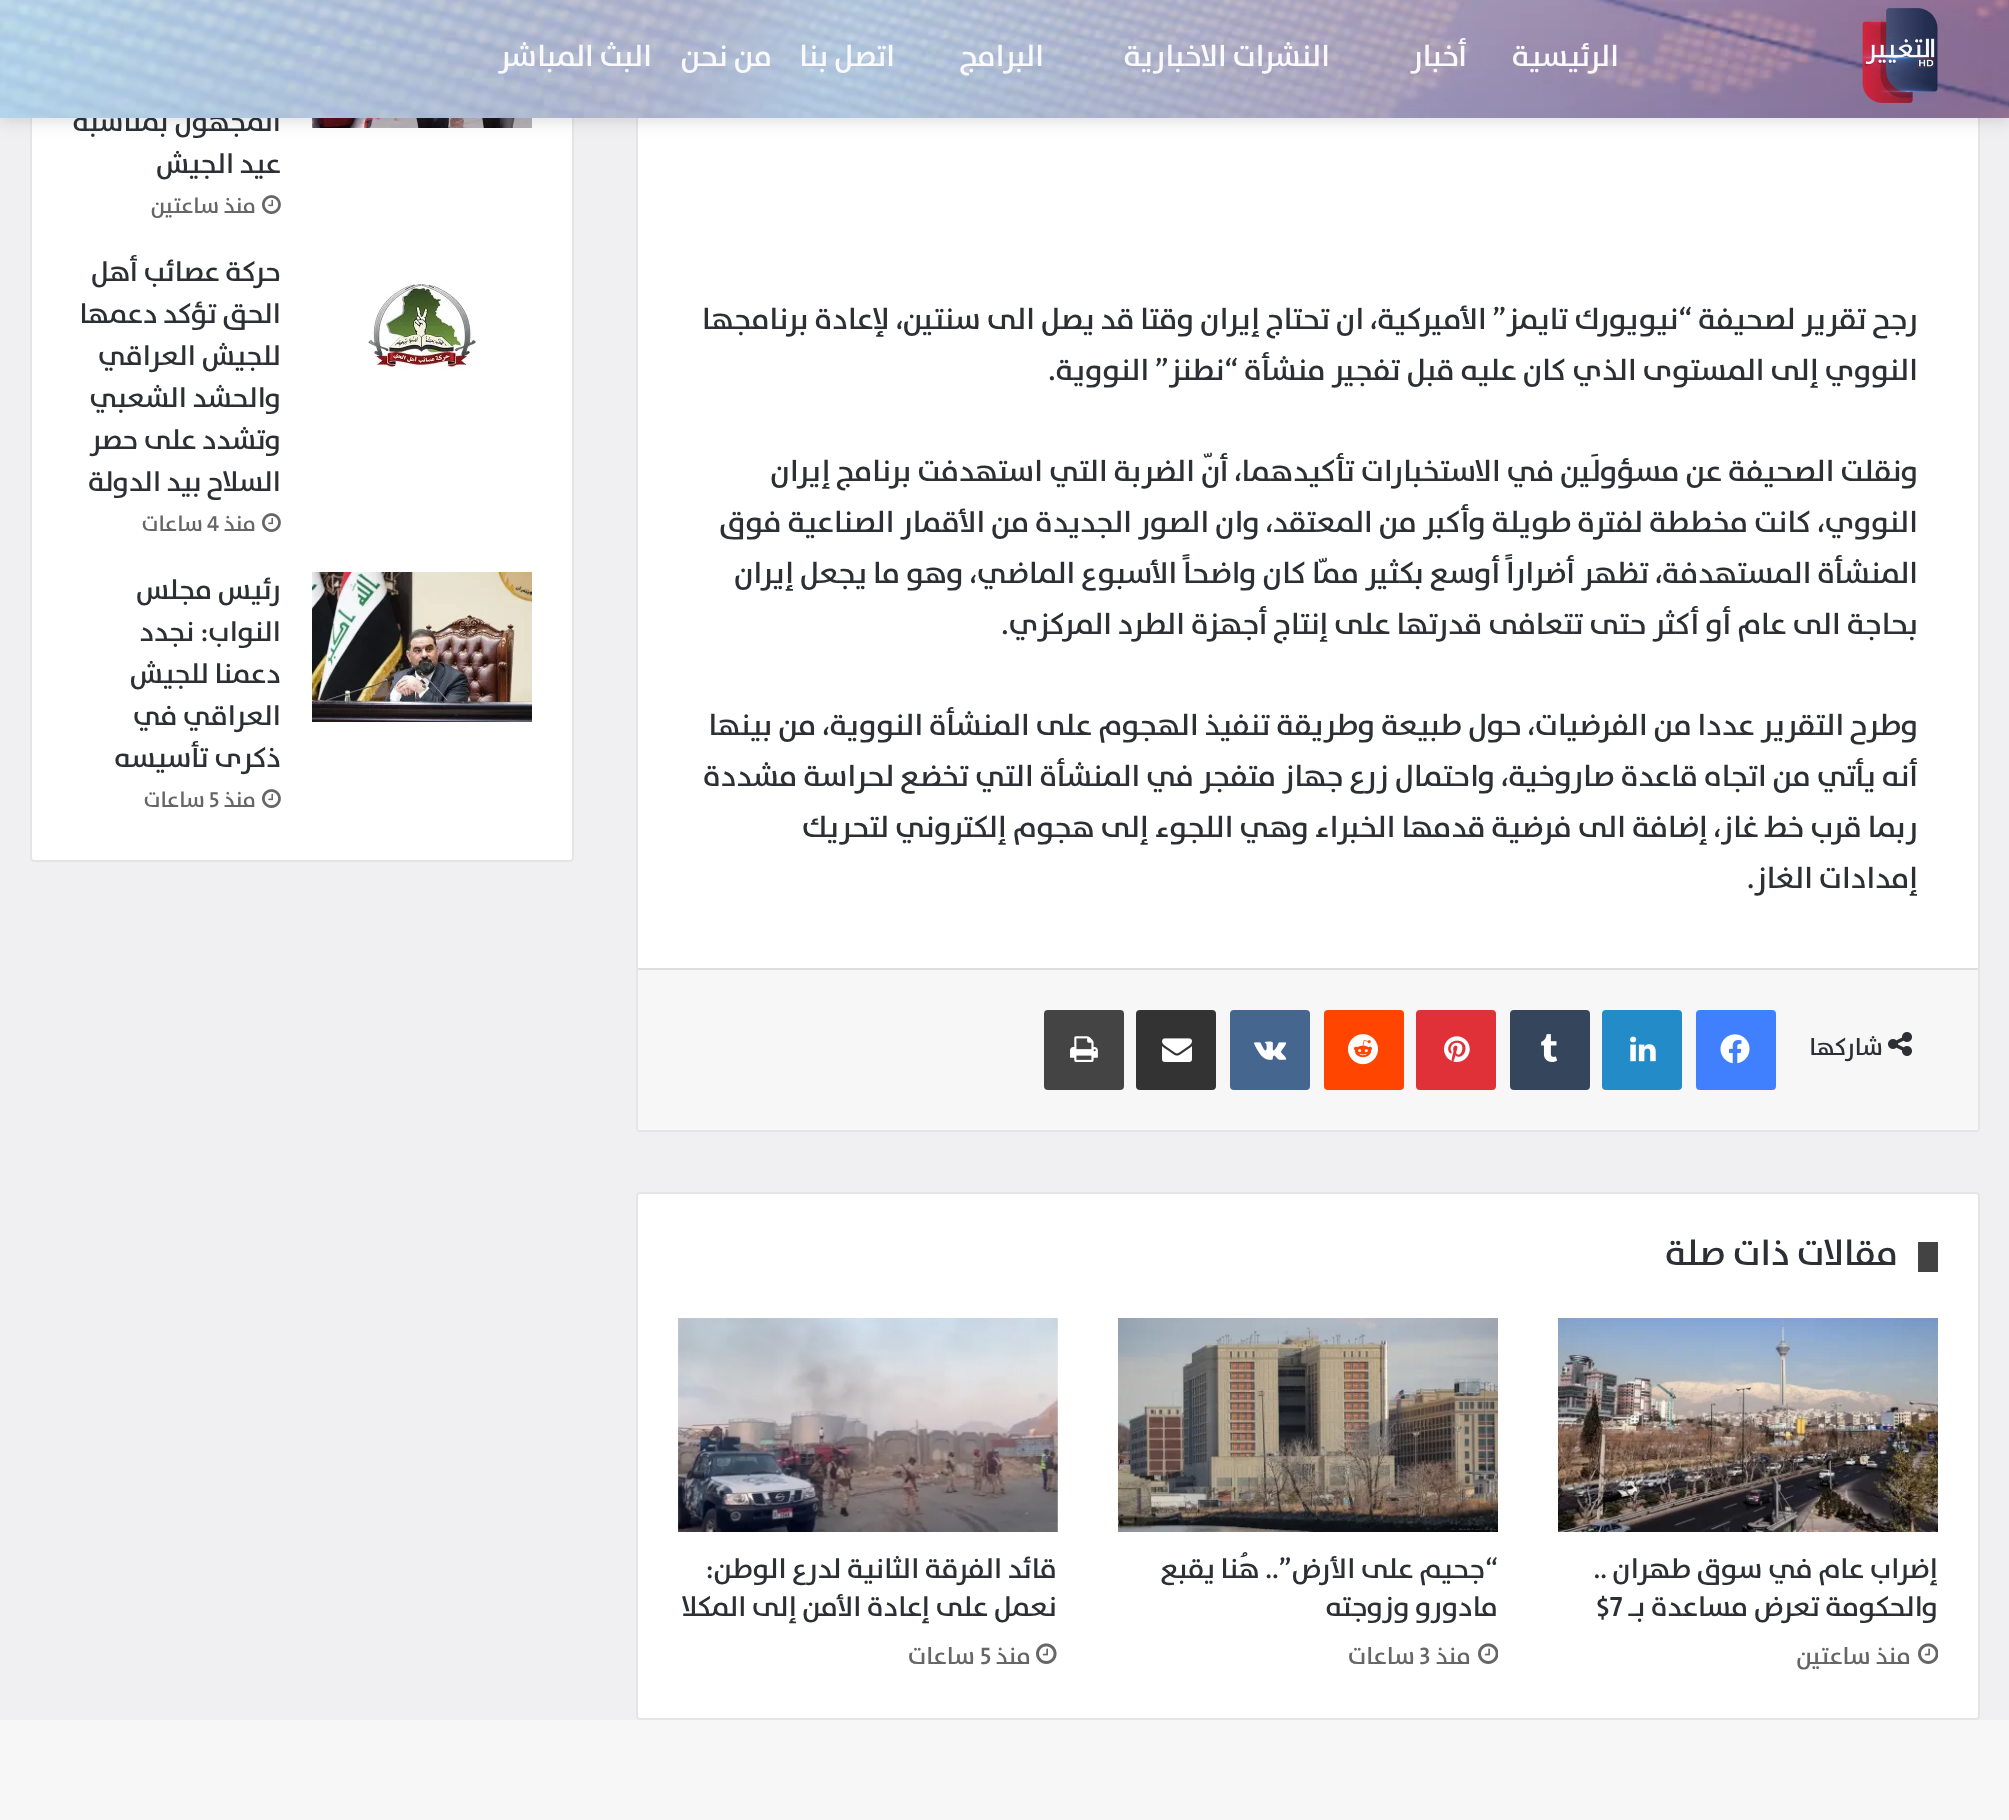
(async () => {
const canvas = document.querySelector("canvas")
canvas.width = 2009
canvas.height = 1820
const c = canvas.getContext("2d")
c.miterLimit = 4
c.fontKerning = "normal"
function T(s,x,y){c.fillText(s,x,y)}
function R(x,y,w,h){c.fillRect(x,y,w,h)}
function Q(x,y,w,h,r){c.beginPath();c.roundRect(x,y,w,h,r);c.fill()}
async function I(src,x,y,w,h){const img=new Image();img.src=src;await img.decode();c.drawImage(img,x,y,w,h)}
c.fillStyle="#f7f7f7"
R(0,0,2009,1820)
c.fillStyle="#f0f0f2"
R(0,118,2009,1602)
c.fillStyle="#fff"
Q(636,-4,1344,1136,4)
c.beginPath()
c.roundRect(637,-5,1342,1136,3)
c.strokeStyle="#0000001a"
c.lineWidth=2
c.stroke()
Q(30,-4,544,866,4)
c.beginPath()
c.roundRect(31,-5,542,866,3)
c.stroke()
await I("17.png",312,118,220,10)
c.fillStyle="#63636333"
c.filter="blur(8px)"
c.beginPath()
c.rect(0,2,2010,120)
c.fill()
c.filter="none"
c.direction="rtl"
c.font="600 28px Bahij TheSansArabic"
c.fillStyle="#2c2f34"
T("المجهول بمناسبة",281,131)
await I("1.png",0,0,2009,118)
await I("2.png",1860,8,78,95)
c.font="600 30px Bahij TheSansArabic"
c.fillStyle="#faf9fb"
T("الرئيسية",1619,66)
T("أخبار",1467,66)
T("النشرات الاخبارية",1330,66)
T("البرامج",1044,66)
T("اتصل بنا",895,66)
T("من نحن",772,66)
T("البث المباشر",652,66)
c.fillStyle="#2c2f34"
T("رجح تقرير لصحيفة “نيويورك تايمز” الأميركية، ان تحتاج إيران وقتا قد يصل الى سنتين، لإعادة برنامجها",1918,329)
T("النووي إلى المستوى الذي كان عليه قبل تفجير منشأة “نطنز” النووية.",1918,380)
T("ونقلت الصحيفة عن مسؤولَين في الاستخبارات تأكيدهما، أنّ الضربة التي استهدفت برنامج إيران",1918,481)
T("النووي، كانت مخططة لفترة طويلة وأكبر من المعتقد، وان الصور الجديدة من الأقمار الصناعية فوق",1918,532)
T("المنشأة المستهدفة، تظهر أضراراً أوسع بكثير ممّا كان واضحاً الأسبوع الماضي، وهو ما يجعل إيران",1918,583)
T("بحاجة الى عام أو أكثر حتى تتعافى قدرتها على إنتاج أجهزة الطرد المركزي.",1918,634)
T("وطرح التقرير عددا من الفرضيات، حول طبيعة وطريقة تنفيذ الهجوم على المنشأة النووية، من بينها",1918,735)
T("أنه يأتي من اتجاه قاعدة صاروخية، واحتمال زرع جهاز متفجر في المنشأة التي تخضع لحراسة مشددة",1918,786)
T("ربما قرب خط غاز، إضافة الى فرضية قدمها الخبراء وهي اللجوء إلى هجوم إلكتروني لتحريك",1918,837)
T("إمدادات الغاز.",1918,888)
c.fillStyle="#f7f7f7"
R(638,970,1340,160)
c.fillStyle="#dedede"
R(638,968,1340,2)
await I("3.png",1888,1032,24,24)
c.font="600 24px Bahij TheSansArabic"
c.fillStyle="#2c2f34"
T("شاركها",1883,1055)
c.fillStyle="#4080ff"
Q(1696,1010,80,80,4)
await I("4.png",1720,1034,30,30)
c.fillStyle="#238cc8"
Q(1602,1010,80,80,4)
await I("5.png",1630,1036,26,26)
c.fillStyle="#35465c"
Q(1510,1010,80,80,4)
await I("6.png",1541,1034,17,28)
c.fillStyle="#e13138"
Q(1416,1010,80,80,4)
await I("7.png",1444,1036,26,26)
c.fillStyle="#ff4500"
Q(1324,1010,80,80,4)
await I("8.png",1348,1034,30,31)
c.fillStyle="#45668e"
Q(1230,1010,80,80,4)
await I("9.png",1254,1041,33,19)
c.fillStyle="#333"
Q(1136,1010,80,80,4)
await I("10.png",1162,1038,30,24)
c.fillStyle="#444"
Q(1044,1010,80,80,4)
await I("11.png",1070,1036,28,26)
c.fillStyle="#fff"
Q(636,1192,1344,528,4)
c.beginPath()
c.roundRect(637,1193,1342,526,3)
c.stroke()
c.fillStyle="#434343"
R(1918,1242,20,30)
c.font="600 36px Bahij TheSansArabic"
c.fillStyle="#2c2f34"
T("مقالات ذات صلة",1898,1265)
await I("12.png",1558,1318,380,214)
c.font="600 28px Bahij TheSansArabic"
T("إضراب عام في سوق طهران ..",1938,1578)
T("والحكومة تعرض مساعدة بـ",1938,1616)
c.direction="ltr"
T("$7",1596,1616)
await I("13.png",1918,1643,20,21)
c.direction="rtl"
c.font="600 24px Bahij TheSansArabic"
c.fillStyle="#666"
T("منذ ساعتين",1911,1664)
await I("14.png",1118,1318,380,214)
c.font="600 28px Bahij TheSansArabic"
c.fillStyle="#2c2f34"
T("“جحيم على الأرض”.. هُنا يقبع",1498,1578)
T("مادورو وزوجته",1498,1616)
await I("13.png",1478,1643,20,21)
c.font="600 24px Bahij TheSansArabic"
c.fillStyle="#666"
T("منذ",1471,1664)
c.direction="ltr"
T("3",1419,1664)
c.direction="rtl"
T("ساعات",1415,1664)
await I("15.png",678,1318,380,214)
c.font="600 28px Bahij TheSansArabic"
c.fillStyle="#2c2f34"
T("قائد الفرقة الثانية لدرع الوطن:",1057,1578)
T("نعمل على إعادة الأمن إلى المكلا",1057,1616)
await I("16.png",1036,1643,21,21)
c.font="600 24px Bahij TheSansArabic"
c.fillStyle="#666"
T("منذ",1031,1664)
c.direction="ltr"
T("5",980,1664)
c.direction="rtl"
T("ساعات",975,1664)
c.font="600 28px Bahij TheSansArabic"
c.fillStyle="#2c2f34"
T("عيد الجيش",281,173)
await I("18.png",262,195,19,19)
c.font="600 22px Bahij TheSansArabic"
c.fillStyle="#666"
T("منذ ساعتين",256,213)
await I("19.png",368,282,108,88)
c.font="600 28px Bahij TheSansArabic"
c.fillStyle="#2c2f34"
T("حركة عصائب أهل",281,281)
T("الحق تؤكد دعمها",281,323)
T("للجيش العراقي",281,365)
T("والحشد الشعبي",281,407)
T("وتشدد على حصر",281,449)
T("السلاح بيد الدولة",281,491)
await I("18.png",262,513,19,19)
c.font="600 22px Bahij TheSansArabic"
c.fillStyle="#666"
T("منذ",256,531)
c.direction="ltr"
T("4",207,531)
c.direction="rtl"
T("ساعات",203,531)
await I("20.png",312,572,220,150)
c.font="600 28px Bahij TheSansArabic"
c.fillStyle="#2c2f34"
T("رئيس مجلس",281,599)
T("النواب: نجدد",281,641)
T("دعمنا للجيش",281,683)
T("العراقي في",281,725)
T("ذكرى تأسيسه",281,767)
await I("18.png",262,789,19,19)
c.font="600 22px Bahij TheSansArabic"
c.fillStyle="#666"
T("منذ",256,807)
c.direction="ltr"
T("5",209,807)
c.direction="rtl"
T("ساعات",205,807)
})()
